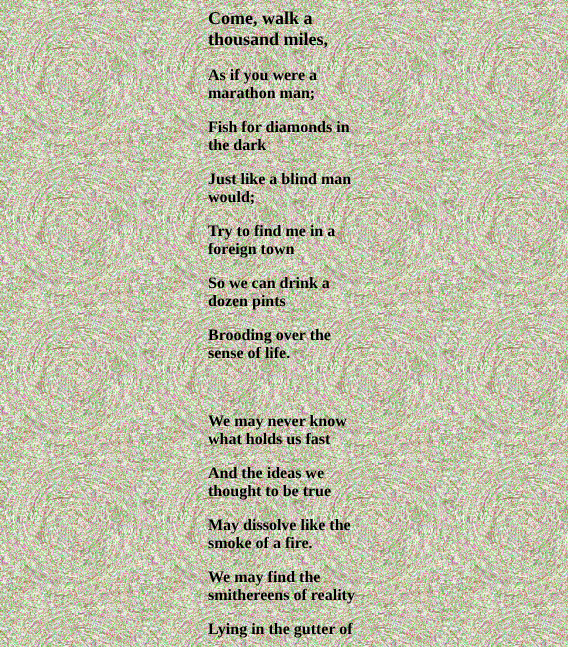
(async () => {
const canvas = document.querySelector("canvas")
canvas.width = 568
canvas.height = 647
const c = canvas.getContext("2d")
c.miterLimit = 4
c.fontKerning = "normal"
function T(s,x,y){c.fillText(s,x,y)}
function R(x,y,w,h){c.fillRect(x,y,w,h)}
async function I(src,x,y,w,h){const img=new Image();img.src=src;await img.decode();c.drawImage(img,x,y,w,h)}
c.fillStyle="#fff"
R(0,0,568,647)
await I("1.png",0,0,568,647)
c.font="bold 18px Liberation Serif"
c.fillStyle="#000"
T("Come, walk a",208,24)
T("thousand miles,",208,45)
c.font="bold 16px Liberation Serif"
T("As if you were a",208,80)
T("marathon man;",208,98)
T("Fish for diamonds in",208,132)
T("the dark",208,150)
T("Just like a blind man",208,184)
T("would;",208,202)
T("Try to find me in a",208,236)
T("foreign town",208,254)
T("So we can drink a",208,288)
T("dozen pints",208,306)
T("Brooding over the",208,340)
T("sense of life.",208,358)
T("We may never know",208,426)
T("what holds us fast",208,444)
T("And the ideas we",208,478)
T("thought to be true",208,496)
T("May dissolve like the",208,530)
T("smoke of a fire.",208,548)
T("We may find the",208,582)
T("smithereens of reality",208,600)
T("Lying in the gutter of",208,634)
})()
